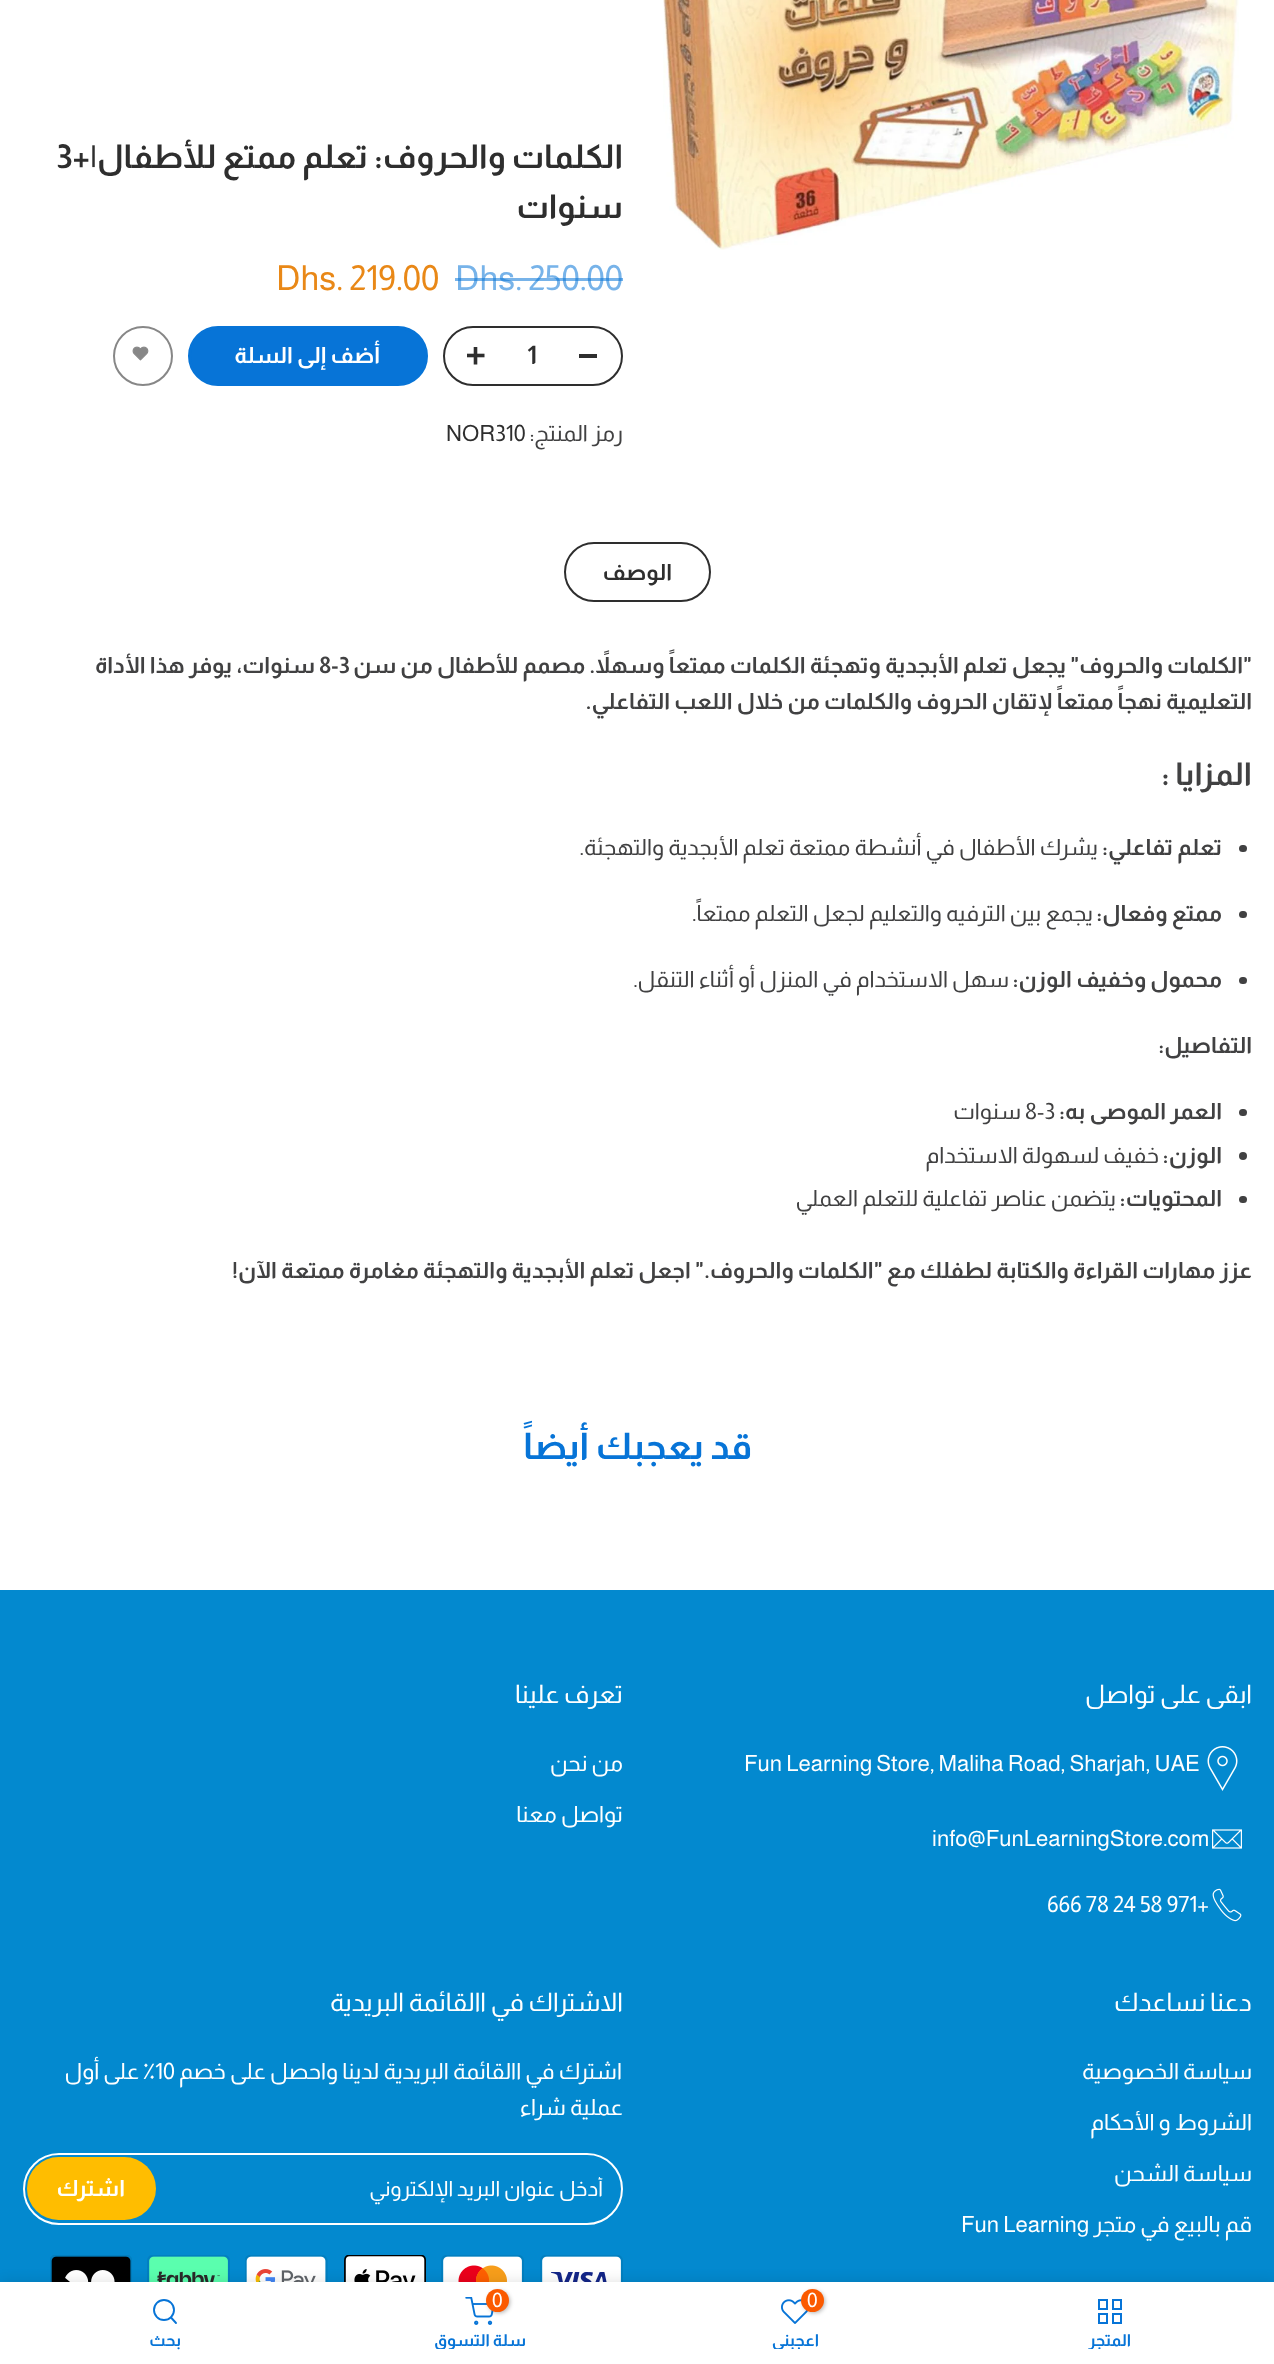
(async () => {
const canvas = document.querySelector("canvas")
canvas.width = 1274
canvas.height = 2364
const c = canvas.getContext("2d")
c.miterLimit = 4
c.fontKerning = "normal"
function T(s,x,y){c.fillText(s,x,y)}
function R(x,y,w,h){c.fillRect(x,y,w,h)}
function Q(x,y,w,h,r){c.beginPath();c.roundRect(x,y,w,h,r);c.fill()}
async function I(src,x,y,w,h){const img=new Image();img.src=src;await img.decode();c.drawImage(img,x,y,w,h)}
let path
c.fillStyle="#fff"
R(0,0,1274,2364)
await I("1.png",663,0,576,250)
c.direction="rtl"
c.font="bold 33px Almarai"
c.fillStyle="#2e2e2e"
T("الكلمات والحروف: تعلم ممتع للأطفال|+",623,168)
c.direction="ltr"
T("3",56,168)
c.direction="rtl"
T("سنوات",623,218)
c.direction="ltr"
c.font="34.5px Almarai"
c.fillStyle="#77b3e9"
T("Dhs. 250.00",455,290)
c.fillStyle="#0774d78c"
R(455,278,168,3)
c.fillStyle="#e98817"
T("Dhs. 219.00",276,290)
c.beginPath()
c.roundRect(444,327,178,58,29)
c.strokeStyle="#2e2e2e"
c.lineWidth=2
c.stroke()
c.fillStyle="#2e2e2e"
R(579,354,18,4)
c.font="bold 25.5px Almarai"
T("1",527,364)
await I("2.png",467,347,18,18)
c.fillStyle="#0774d7"
c.beginPath()
c.roundRect(189.5,327.5,237,57,28.5)
c.fill()
c.strokeStyle="#0774d7"
c.lineWidth=3
c.stroke()
c.direction="rtl"
c.font="bold 22.5px Almarai"
c.fillStyle="#fff"
T("أضف إلى السلة",380,363)
c.beginPath()
c.arc(143,356,29,0,7)
c.strokeStyle="#878787"
c.lineWidth=2
c.stroke()
await I("3.png",132,346,17,15)
c.font="22.5px Almarai"
c.fillStyle="#414142"
T("رمز المنتج:",623,441)
c.direction="ltr"
c.fillStyle="#2e2e2e"
T("NOR310",446,441)
c.beginPath()
c.roundRect(565,543,145,58,29)
c.strokeStyle="#2e2e2e"
c.stroke()
c.direction="rtl"
c.font="bold 22.5px Almarai"
T("الوصف",672,580)
c.fillStyle="#414142"
T("\"الكلمات والحروف\" يجعل تعلم الأبجدية وتهجئة الكلمات ممتعاً وسهلاً. مصمم للأطفال من سن",1252,673)
c.direction="ltr"
T("8-3",319,673)
c.direction="rtl"
T("سنوات، يوفر هذا الأداة",315,673)
T("التعليمية نهجاً ممتعاً لإتقان الحروف والكلمات من خلال اللعب التفاعلي.",1252,709)
c.font="bold 31.5px Almarai"
T("المزايا :",1252,785)
Q(1239,845,8,7,3.5)
c.font="bold 22.5px Almarai"
T("تعلم تفاعلي:",1222,855)
c.font="22.5px Almarai"
T("يشرك الأطفال في أنشطة ممتعة تعلم الأبجدية والتهجئة.",1098,855)
Q(1239,911,8,7,3.5)
c.font="bold 22.5px Almarai"
T("ممتع وفعال:",1222,921)
c.font="22.5px Almarai"
T("يجمع بين الترفيه والتعليم لجعل التعلم ممتعاً.",1093,921)
Q(1239,977,8,7,3.5)
c.font="bold 22.5px Almarai"
T("محمول وخفيف الوزن:",1222,987)
c.font="22.5px Almarai"
T("سهل الاستخدام في المنزل أو أثناء التنقل.",1009,987)
c.font="bold 22.5px Almarai"
T("التفاصيل:",1252,1053)
Q(1239,1109,8,7,3.5)
T("العمر الموصى به:",1222,1119)
c.direction="ltr"
c.font="22.5px Almarai"
T("8-3",1025,1119)
c.direction="rtl"
T("سنوات",1021,1119)
c.beginPath()
c.arc(1243,1156,4,0,7)
c.fill()
c.font="bold 22.5px Almarai"
T("الوزن:",1222,1163)
c.font="22.5px Almarai"
T("خفيف لسهولة الاستخدام",1159,1163)
Q(1239,1196,8,7,3.5)
c.font="bold 22.5px Almarai"
T("المحتويات:",1222,1206)
c.font="22.5px Almarai"
T("يتضمن عناصر تفاعلية للتعلم العملي",1116,1206)
c.font="bold 22.5px Almarai"
T("عزز مهارات القراءة والكتابة لطفلك مع \"الكلمات والحروف.\" اجعل تعلم الأبجدية والتهجئة مغامرة ممتعة الآن!",1252,1278)
c.font="bold 36.75px Almarai"
c.fillStyle="#0774d7"
T("قد يعجبك أيضاً",752,1459)
c.fillStyle="#0389cf"
R(0,1590,1274,692)
c.font="25.5px Almarai"
c.fillStyle="#fff"
T("ابقى على تواصل",1252,1703)
await I("4.png",1207,1746,31,45)
c.direction="ltr"
c.font="22.5px Almarai"
T("Fun Learning Store, Maliha Road, Sharjah, UAE",744,1771)
await I("5.png",1212,1829,30,20)
T("info@FunLearningStore.com",932,1846)
await I("6.png",1212,1888,30,34)
T("666 78 24 58 971+",1047,1912)
c.direction="rtl"
c.font="25.5px Almarai"
T("تعرف علينا",623,1703)
c.font="22.5px Almarai"
T("من نحن",623,1771)
T("تواصل معنا",623,1822)
c.font="25.5px Almarai"
T("دعنا نساعدك",1252,2011)
c.font="22.5px Almarai"
T("سياسة الخصوصية",1252,2079)
T("الشروط و الأحكام",1252,2130)
T("سياسة الشحن",1252,2181)
T("قم بالبيع في متجر",1252,2232)
c.direction="ltr"
T("Fun Learning",961,2232)
c.direction="rtl"
c.font="25.5px Almarai"
T("الاشتراك في االقائمة البريدية",623,2011)
c.font="22.5px Almarai"
T("اشترك في االقائمة البريدية لدينا واحصل على خصم",622,2079)
c.direction="ltr"
T("10",155,2079)
c.direction="rtl"
T("٪ على أول",155,2079)
T("عملية شراء",623,2115)
c.beginPath()
c.roundRect(24,2154,598,70,35)
c.strokeStyle="#fff"
c.stroke()
c.save()
c.beginPath()
c.rect(171,2177,432,63)
c.clip()
c.font="21px Almarai"
T("أدخل عنوان البريد الإلكتروني",603,2196)
c.restore()
c.fillStyle="#ffbd00"
Q(27,2157,129,63,31.5)
c.font="bold 22.5px Almarai"
c.fillStyle="#fff"
T("اشترك",125,2196)
await I("7.png",540,2255,83,27)
await I("8.png",441,2255,83,27)
await I("9.png",344,2255,82,27)
await I("10.png",245,2255,83,27)
await I("11.png",147,2255,83,27)
await I("12.png",50,2255,82,27)
c.fillStyle="#0000001f"
c.filter="blur(7px)"
c.beginPath()
c.rect(0,2282,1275,82)
c.fill()
c.filter="none"
c.fillStyle="#fff"
R(0,2282,1274,82)
c.strokeStyle="#0774d7"
c.strokeRect(1099,2300,8,9)
c.strokeRect(1113,2300,8,9)
c.strokeRect(1113,2314,8,9)
c.strokeRect(1099,2314,8,9)
c.save()
c.beginPath()
c.rect(968,2333,285,16)
c.clip()
c.font="bold 16.5px Almarai"
c.fillStyle="#0774d7"
T("المتجر",1131,2346)
c.restore()
await I("13.png",781,2299,27,25)
c.fillStyle="#0000004d"
c.filter="blur(2px)"
c.beginPath()
c.roundRect(803,2291,22,22,11)
c.fill()
c.filter="none"
c.fillStyle="#fb5a00"
c.beginPath()
c.arc(812.5,2300.5,11.5,0,7)
c.fill()
c.direction="ltr"
c.font="20px Almarai"
c.fillStyle="#fff"
T("0",807,2307)
c.save()
c.beginPath()
c.rect(653,2333,285,16)
c.clip()
c.direction="rtl"
c.font="bold 16.5px Almarai"
c.fillStyle="#0774d7"
T("أعجبني",819,2346)
c.restore()
await I("14.png",465,2297,29,28)
c.fillStyle="#0000004d"
c.filter="blur(2px)"
c.beginPath()
c.roundRect(488,2291,22,22,11)
c.fill()
c.filter="none"
c.fillStyle="#fb5a00"
c.beginPath()
c.arc(497.5,2300.5,11.5,0,7)
c.fill()
c.fillStyle="#fff"
T("0",492,2307)
c.save()
c.beginPath()
c.rect(338,2333,285,16)
c.clip()
c.direction="rtl"
c.font="bold 16.5px Almarai"
c.fillStyle="#0774d7"
T("سلة التسوق",526,2346)
c.restore()
c.beginPath()
c.arc(164,2310,10,0,7)
c.lineWidth=1.9
c.stroke()
path = new Path2D("M176 2323l-5-5.5")
c.lineCap="round"
c.lineJoin="round"
c.stroke(path)
c.direction="rtl"
c.font="bold 16.5px Almarai"
c.fillStyle="#0774d7"
T("بحث",181,2346)
})()
